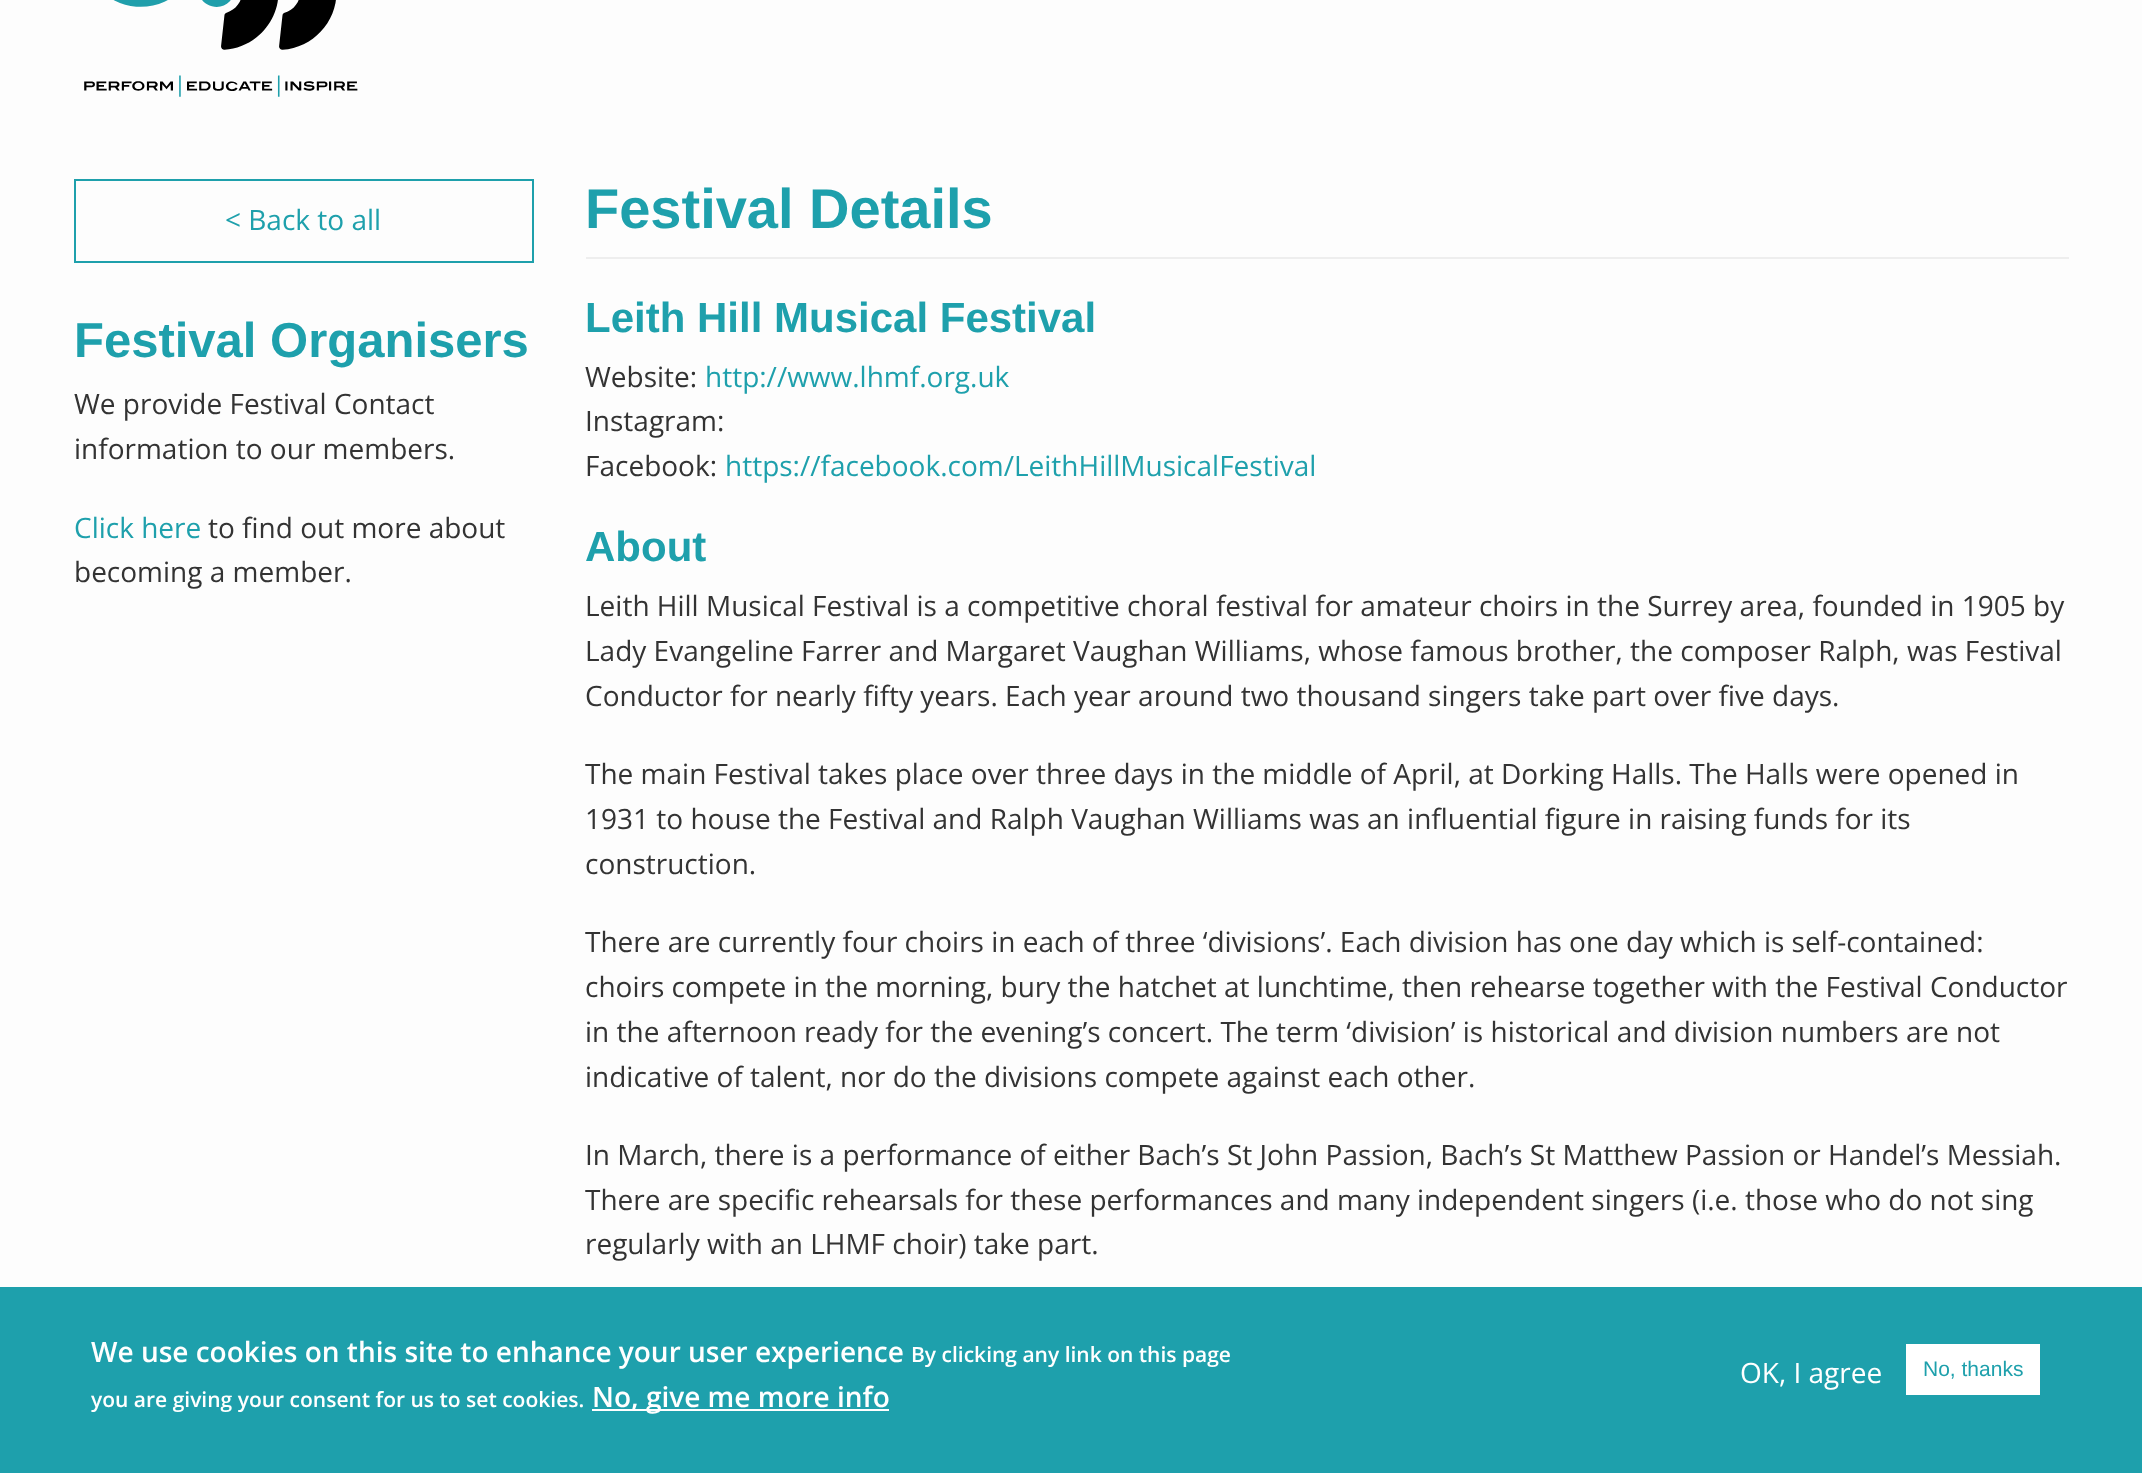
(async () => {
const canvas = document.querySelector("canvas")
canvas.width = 2142
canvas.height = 1473
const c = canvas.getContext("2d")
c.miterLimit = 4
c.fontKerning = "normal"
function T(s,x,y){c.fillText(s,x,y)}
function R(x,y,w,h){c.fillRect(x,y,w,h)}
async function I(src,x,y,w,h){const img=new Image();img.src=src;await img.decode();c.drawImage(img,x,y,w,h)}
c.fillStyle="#fdfdfd"
R(0,0,2142,1473)
await I("1.png",84,0,274,97)
c.strokeStyle="#1ea0ac"
c.lineWidth=2
c.strokeRect(75,180,458,82)
c.font="28px Open Sans"
c.fillStyle="#1ea0ac"
T("< Back to all",225,230)
c.font="bold 49px Arimo"
T("Festival Organisers",74,357)
c.font="28px Open Sans"
c.fillStyle="#333"
T("We provide Festival Contact",74,414)
T("information to our members.",74,459)
c.fillStyle="#1ea0ac"
T("Click here",74,538)
c.fillStyle="#333"
T("to find out more about",208,538)
T("becoming a member.",74,582)
c.fillStyle="#eee"
R(586,257,1483,2)
c.font="bold 56px Arimo"
c.fillStyle="#1ea0ac"
T("Festival Details",585,228)
c.font="bold 42px Arimo"
T("Leith Hill Musical Festival",585,332)
c.font="28px Open Sans"
c.fillStyle="#333"
T("Website:",585,387)
c.fillStyle="#1ea0ac"
T("http://www.lhmf.org.uk",705,387)
c.fillStyle="#333"
T("Instagram:",585,431)
T("Facebook:",585,476)
c.fillStyle="#1ea0ac"
T("https://facebook.com/LeithHillMusicalFestival",725,476)
c.font="bold 42px Arimo"
T("About",585,561)
c.font="28px Open Sans"
c.fillStyle="#333"
T("Leith Hill Musical Festival is a competitive choral festival for amateur choirs in the Surrey area, founded in 1905 by",585,616)
T("Lady Evangeline Farrer and Margaret Vaughan Williams, whose famous brother, the composer Ralph, was Festival",585,661)
T("Conductor for nearly fifty years. Each year around two thousand singers take part over five days.",585,706)
T("The main Festival takes place over three days in the middle of April, at Dorking Halls. The Halls were opened in",585,784)
T("1931 to house the Festival and Ralph Vaughan Williams was an influential figure in raising funds for its",585,829)
T("construction.",585,874)
T("There are currently four choirs in each of three ‘divisions’. Each division has one day which is self-contained:",585,952)
T("choirs compete in the morning, bury the hatchet at lunchtime, then rehearse together with the Festival Conductor",585,997)
T("in the afternoon ready for the evening’s concert. The term ‘division’ is historical and division numbers are not",585,1042)
T("indicative of talent, nor do the divisions compete against each other.",585,1087)
T("In March, there is a performance of either Bach’s St John Passion, Bach’s St Matthew Passion or Handel’s Messiah.",585,1165)
T("There are specific rehearsals for these performances and many independent singers (i.e. those who do not sing",585,1210)
T("regularly with an LHMF choir) take part.",585,1254)
c.fillStyle="#1ea0ac"
R(0,1287,2142,186)
c.font="600 28px Open Sans"
c.fillStyle="#fff"
T("We use cookies on this site to enhance your user experience",91,1362)
c.font="600 21px Open Sans"
T("By clicking any link on this page",911,1362)
T("you are giving your consent for us to set cookies.",91,1407)
R(592,1409,297,2)
c.font="600 28px Open Sans"
T("No, give me more info",592,1407)
c.font="28px Open Sans"
T("OK, I agree",1740,1383)
R(1906,1344,134,51)
c.font="21px Liberation Sans"
c.fillStyle="#1ea0ac"
T("No, thanks",1923,1376)
})()
